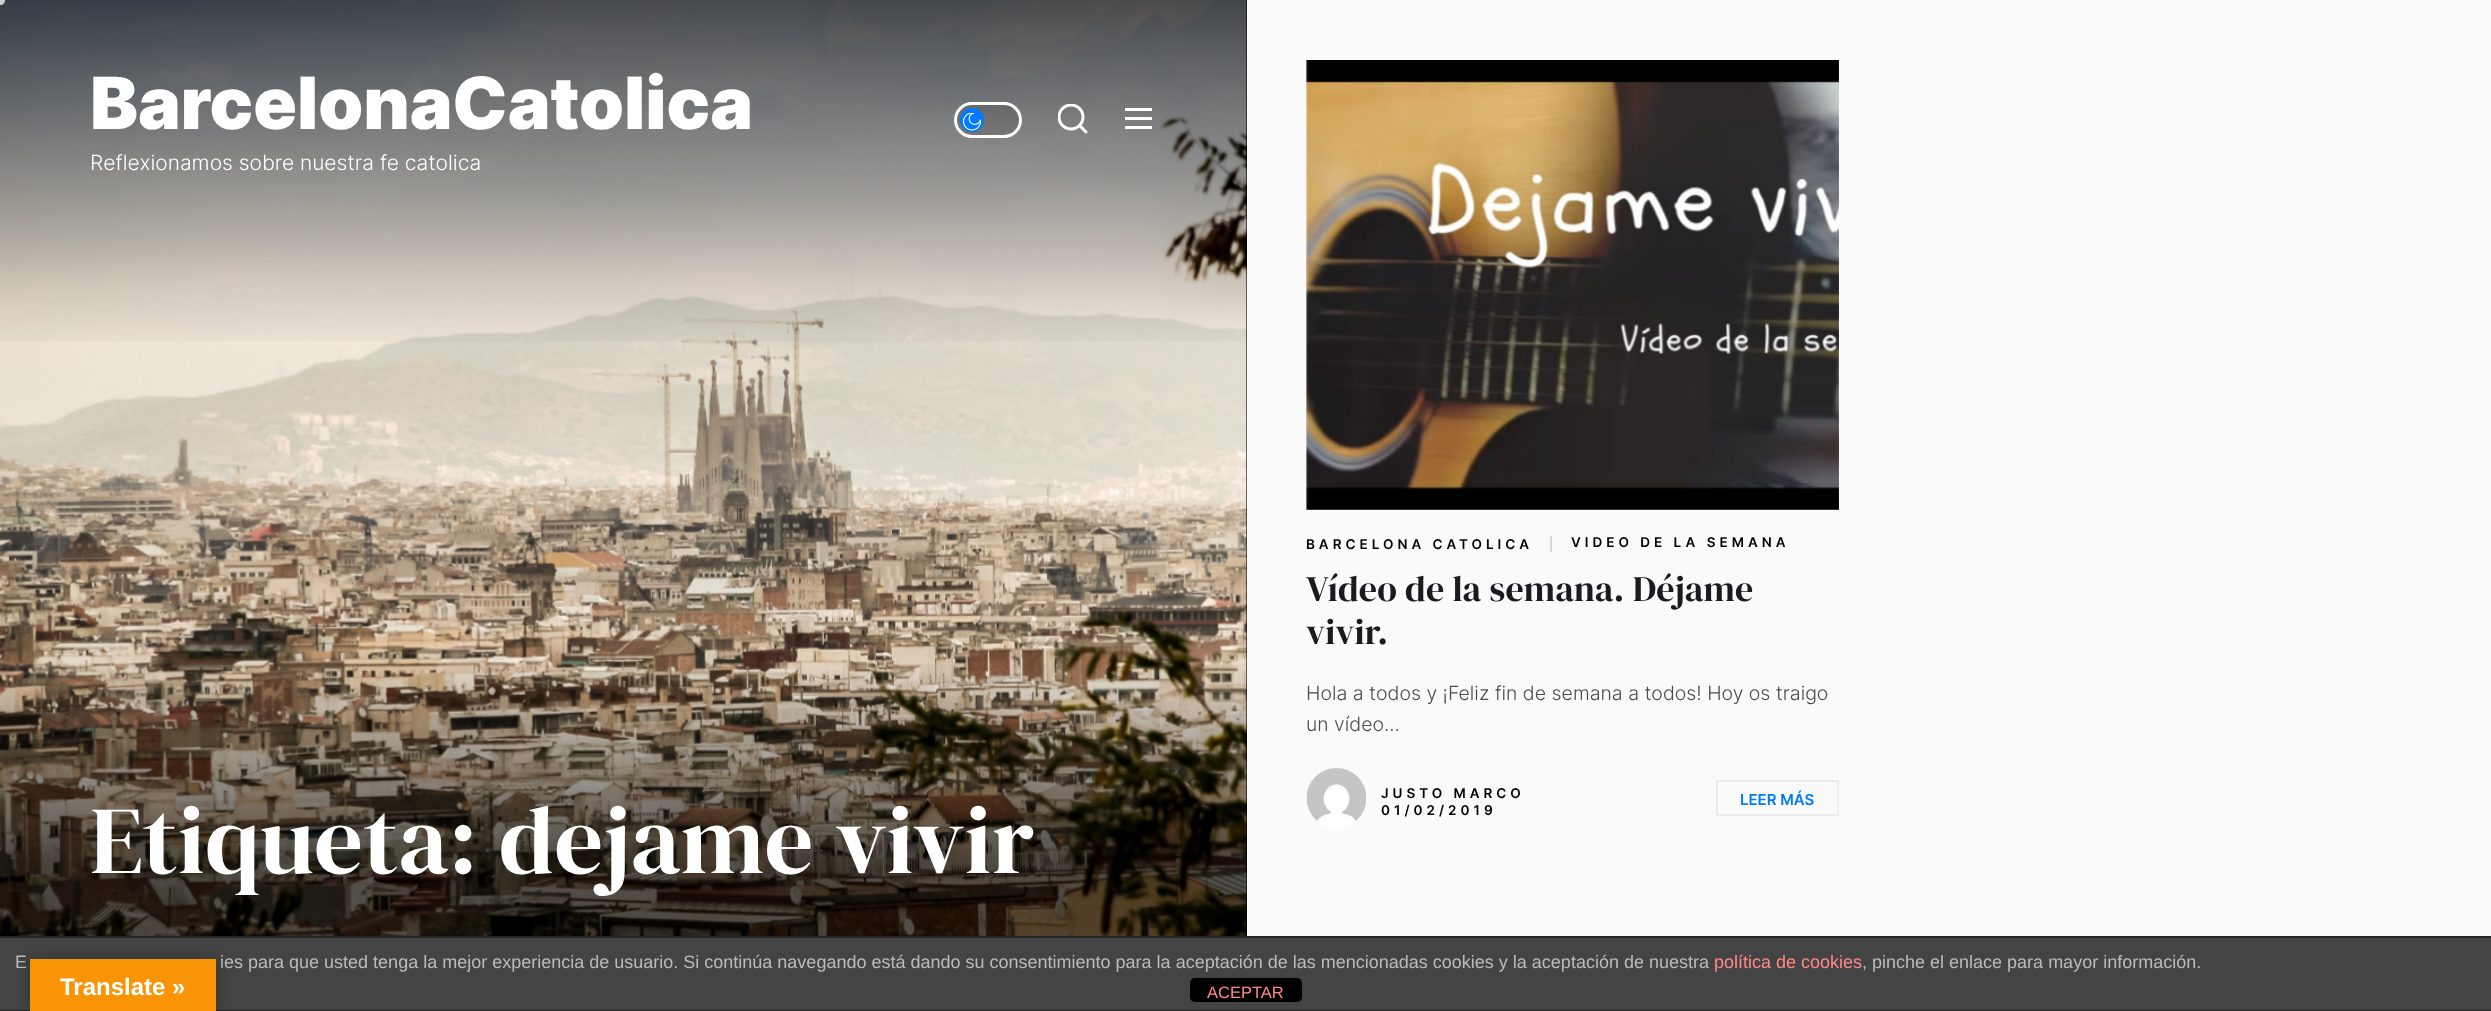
(async () => {
const canvas = document.querySelector("canvas")
canvas.width = 2491
canvas.height = 1011
const c = canvas.getContext("2d")
c.miterLimit = 4
c.fontKerning = "normal"
function T(s,x,y){c.fillText(s,x,y)}
function R(x,y,w,h){c.fillRect(x,y,w,h)}
function Q(x,y,w,h,r){c.beginPath();c.roundRect(x,y,w,h,r);c.fill()}
async function I(src,x,y,w,h){const img=new Image();img.src=src;await img.decode();c.drawImage(img,x,y,w,h)}
let gradient
c.fillStyle="#fafafa"
R(0,0,2491,1011)
c.fillStyle="#000"
R(1246,0,1,936)
await I("1.png",0,0,1247,936)
gradient = c.createLinearGradient(623,0,623,1011)
gradient.addColorStop(0,"#000000a6")
gradient.addColorStop(.35,"#00000000")
c.fillStyle = gradient
R(0,0,1247,342)
c.fillStyle="#ced0d4"
c.beginPath()
c.arc(.5,.5,4.5,0,7)
c.fill()
gradient = c.createLinearGradient(623,0,623,1011)
gradient.addColorStop(.65,"#00000000")
gradient.addColorStop(.85,"#000000a6")
c.fillStyle = gradient
R(0,664,1247,272)
c.font="900 72px Inter"
c.fillStyle="#fff"
T("BarcelonaCatolica",90,129)
c.font="300 21px Inter"
T("Reflexionamos sobre nuestra fe catolica",90,170)
c.fillStyle="#0000001a"
c.beginPath()
c.roundRect(955.5,103.5,65,33,16.5)
c.fill()
c.strokeStyle="#fff"
c.lineWidth=3
c.stroke()
c.fillStyle="#007aff"
c.beginPath()
c.arc(972,120,12,0,7)
c.fill()
await I("2.png",963,113,18,18)
await I("3.png",1058,104,30,30)
await I("4.png",1125,108,27,21)
c.letterSpacing="0.5px"
c.font="96px DM Serif Display"
c.fillStyle="#fff"
T("Etiqueta:",90,873)
T("dejame vivir",499,873)
await I("5.png",1306,60,533,450)
c.letterSpacing="4px"
c.font="600 13.5px Inter"
c.fillStyle="#000"
T("BARCELONA CATOLICA",1306,549)
c.fillStyle="#d8d8d8"
R(1550,536,2,16)
c.fillStyle="#000"
T("VIDEO DE LA SEMANA",1571,547)
c.letterSpacing="0.2px"
c.font="36px DM Serif Display"
c.fillStyle="#1a1b1f"
T("Vídeo de la semana. Déjame",1306,601)
T("vivir.",1306,644)
c.letterSpacing="0px"
c.font="300 19.5px Inter"
c.fillStyle="#4b4b4b"
T("Hola a todos y ¡Feliz fin de semana a todos! Hoy os traigo",1306,700)
T("un vídeo...",1306,731)
await I("6.png",1306,768,61,60)
c.letterSpacing="4px"
c.font="600 13.5px Inter"
c.fillStyle="#000"
T("JUSTO MARCO",1381,798)
T("01/02/2019",1381,815)
c.strokeStyle="#e9ecef"
c.lineWidth=2
c.strokeRect(1717,781,121,34)
c.letterSpacing="0px"
c.font="600 15px Inter"
c.fillStyle="#007aff"
T("LEER MÁS",1740,805)
c.fillStyle="#444"
R(0,938,2491,72)
c.fillStyle="#222"
R(0,936,2491,2)
R(0,1010,2491,1)
c.font="18px Liberation Sans"
c.fillStyle="#bbb"
T("E",15,968)
T("ies para que usted tenga la mejor experiencia de usuario. Si continúa navegando está dando su consentimiento para la aceptación de las mencionadas cookies y la aceptación de nuestra",220,968)
c.fillStyle="#f88"
T("política de cookies",1714,968)
c.fillStyle="#bbb"
T(", pinche el enlace para mayor información.",1862,968)
c.fillStyle="#000"
Q(1190,978,112,24,5)
c.font="16.5px Liberation Sans"
c.fillStyle="#f88"
T("ACEPTAR",1207,998)
c.fillStyle="#0000004d"
c.filter="blur(7px)"
c.beginPath()
c.rect(30,959,186,52)
c.fill()
c.filter="none"
c.fillStyle="#f89406"
R(30,959,186,52)
c.font="bold 24px Liberation Sans"
c.fillStyle="#fff"
T("Translate »",60,995)
})()
